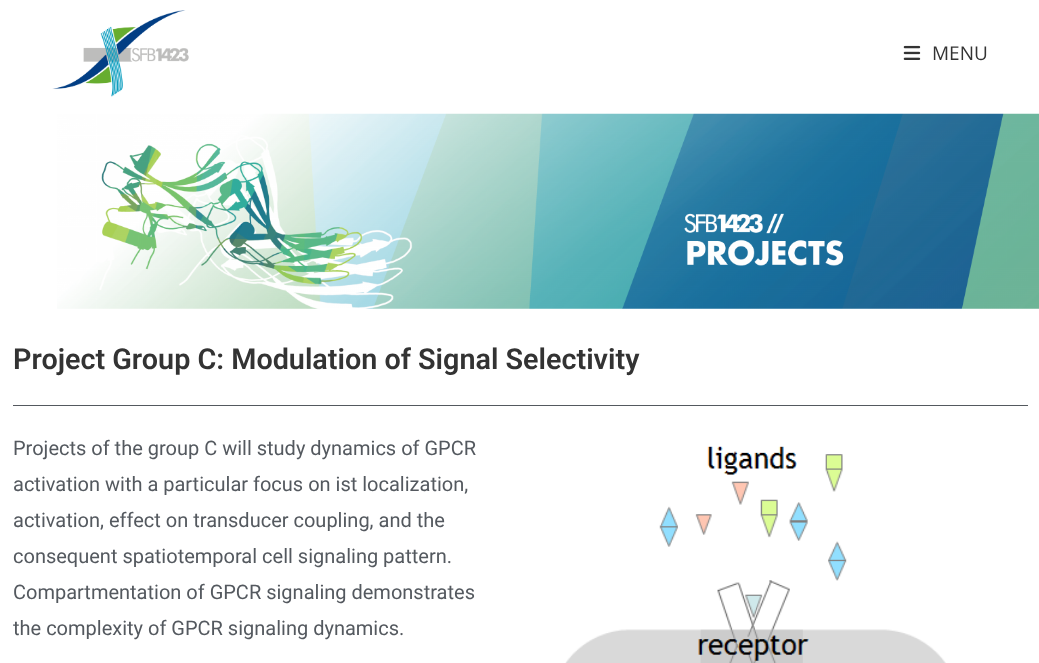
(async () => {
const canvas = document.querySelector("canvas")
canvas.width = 1039
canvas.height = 663
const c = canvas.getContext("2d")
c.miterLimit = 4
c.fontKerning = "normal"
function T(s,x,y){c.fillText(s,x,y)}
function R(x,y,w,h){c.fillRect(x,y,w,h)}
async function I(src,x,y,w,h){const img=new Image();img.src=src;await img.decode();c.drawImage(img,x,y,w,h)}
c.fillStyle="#fff"
R(0,0,1039,663)
await I("1.png",52,10,137,87)
await I("2.png",903,45,18,15)
c.font="19px Open Sans"
c.fillStyle="#333"
T("MENU",932,60)
await I("3.png",57,113,982,196)
c.fillStyle="#54595f"
R(13,405,1015,1)
c.font="600 28.75px Roboto"
c.fillStyle="#333"
T("Project Group C: Modulation of Signal Selectivity",13,369)
c.font="20px Roboto"
c.fillStyle="#54595f"
T("Projects of the group C will study dynamics of GPCR",13,455)
T("activation with a particular focus on ist localization,",13,491)
T("activation, effect on transducer coupling, and the",13,527)
T("consequent spatiotemporal cell signaling pattern.",13,563)
T("Compartmentation of GPCR signaling demonstrates",13,599)
T("the complexity of GPCR signaling dynamics.",13,635)
await I("4.png",565,446,381,217)
})()
